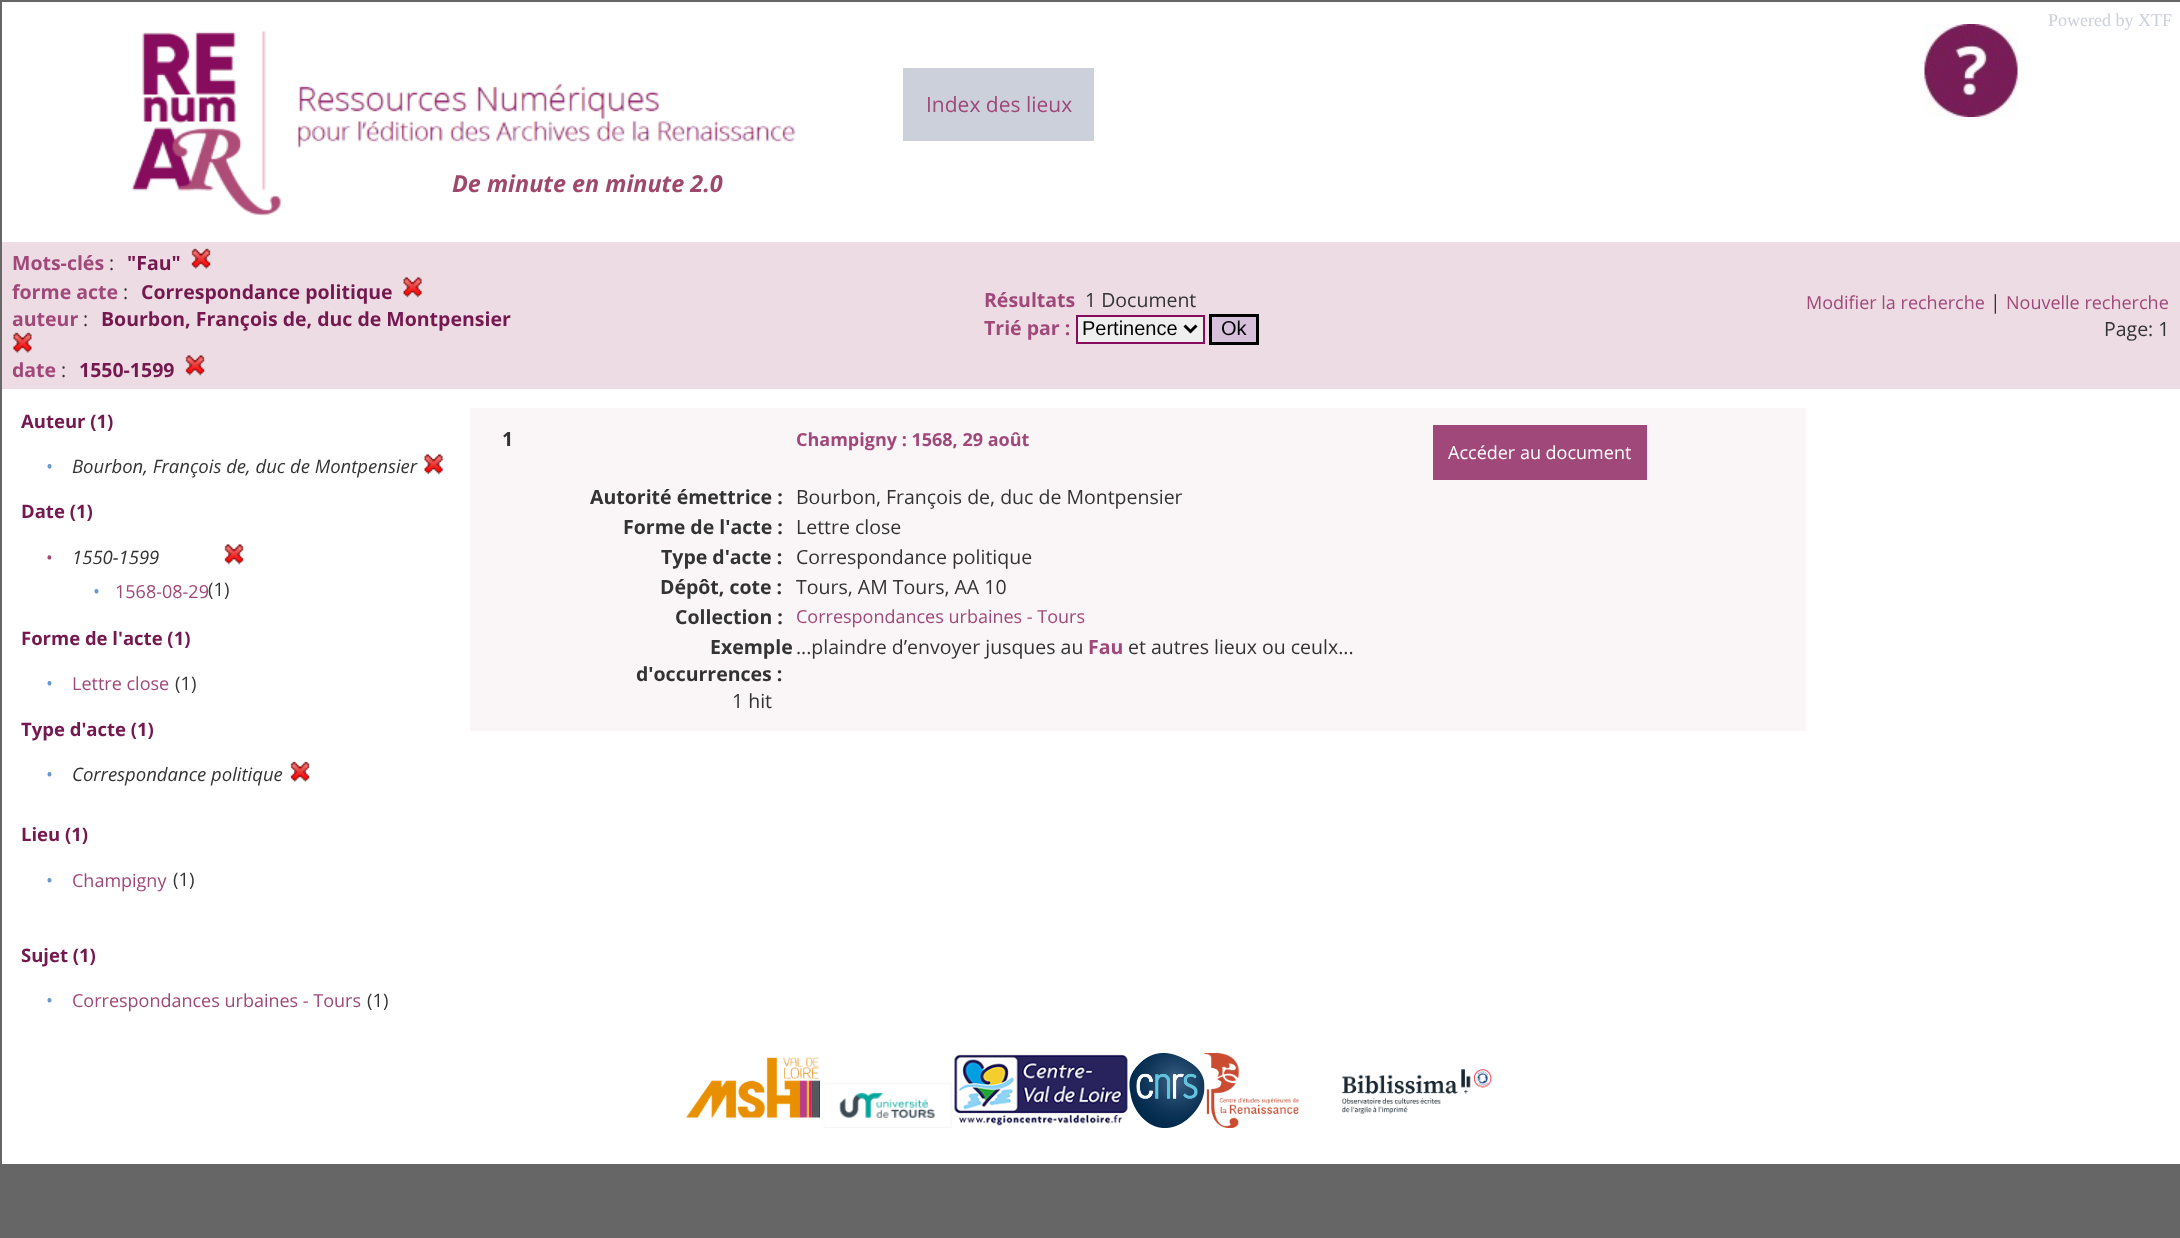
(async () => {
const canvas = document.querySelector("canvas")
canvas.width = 2180
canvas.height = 1238
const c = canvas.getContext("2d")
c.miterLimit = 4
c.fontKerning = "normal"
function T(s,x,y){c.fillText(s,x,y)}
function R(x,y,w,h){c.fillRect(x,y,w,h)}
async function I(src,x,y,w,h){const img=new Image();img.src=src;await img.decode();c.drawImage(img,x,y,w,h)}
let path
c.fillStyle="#666"
R(0,0,2180,1238)
c.fillStyle="#fff"
R(2,2,2178,240)
c.font="18px Liberation Serif"
c.fillStyle="#ccd0db"
T("Powered by XTF",2048,26)
await I("1.png",131,31,665,185)
R(903,68,191,73)
c.font="21px Open Sans"
c.fillStyle="#9f4879"
T("Index des lieux",926,112)
await I("2.png",1924,24,94,93)
c.font="italic bold 23.4px Open Sans"
c.fillStyle="#9f486c"
T("De minute en minute 2.0",452,192)
c.fillStyle="#eddce3"
R(2,242,2178,147)
c.font="bold 19.5px Open Sans"
c.fillStyle="#9f4879"
T("Mots-clés",12,270)
c.font="19.5px Open Sans"
c.fillStyle="#333"
T(":",109,270)
c.font="bold 19.5px Open Sans"
c.fillStyle="#74184f"
T("\"Fau\"",127,270)
await I("3.png",191,248,20,21)
c.fillStyle="#9f4879"
T("forme acte",12,299)
c.font="19.5px Open Sans"
c.fillStyle="#333"
T(":",123,299)
c.font="bold 19.5px Open Sans"
c.fillStyle="#74184f"
T("Correspondance politique",141,299)
await I("4.png",403,277,19,21)
c.fillStyle="#9f4879"
T("auteur",12,326)
c.font="19.5px Open Sans"
c.fillStyle="#333"
T(":",83,326)
c.font="bold 19.5px Open Sans"
c.fillStyle="#74184f"
T("Bourbon, François de, duc de Montpensier",101,326)
await I("5.png",13,332,19,21)
c.fillStyle="#9f4879"
T("date",12,377)
c.font="19.5px Open Sans"
c.fillStyle="#333"
T(":",61,377)
c.font="bold 19.5px Open Sans"
c.fillStyle="#74184f"
T("1550-1599",79,377)
await I("6.png",185,355,20,21)
c.fillStyle="#9f4879"
T("Résultats",984,307)
c.font="19.5px Open Sans"
c.fillStyle="#333"
T("1 Document",1085,307)
c.font="bold 19.5px Open Sans"
c.fillStyle="#9f4879"
T("Trié par :",984,335)
c.fillStyle="#efefef"
c.beginPath()
c.rect(1077,316,127,27)
c.fill()
c.strokeStyle="#880c5e"
c.lineWidth=2
c.stroke()
path = new Path2D("M1184.5 325.5l6 6l6-6")
c.strokeStyle="#000"
c.lineWidth=3
c.stroke(path)
c.font="20px Liberation Sans"
c.fillStyle="#000"
T("Pertinence",1082,335)
c.fillStyle="#d6c0db"
c.beginPath()
c.rect(1210.5,315.5,47,28)
c.fill()
c.stroke()
c.fillStyle="#000"
T("Ok",1221,335)
c.font="18px Open Sans"
c.fillStyle="#9f4879"
T("Modifier la recherche",1806,309)
c.font="19.5px Open Sans"
c.fillStyle="#333"
T("|",1990,309)
c.font="18px Open Sans"
c.fillStyle="#9f4879"
T("Nouvelle recherche",2006,309)
c.font="19.5px Open Sans"
c.fillStyle="#333"
T("Page: 1",2104,336)
c.fillStyle="#fff"
R(2,389,2178,775)
c.font="bold 18.5px Open Sans"
c.fillStyle="#74184f"
T("Auteur (1)",21,428)
c.font="18.5px Open Sans"
c.fillStyle="#69c"
T("•",46,473)
c.font="italic 18.5px Open Sans"
c.fillStyle="#333"
T("Bourbon, François de, duc de Montpensier",72,473)
await I("7.png",424,454,19,21)
c.font="bold 18.5px Open Sans"
c.fillStyle="#74184f"
T("Date (1)",21,518)
c.font="18px Open Sans"
c.fillStyle="#9f4879"
T("•",46,564)
c.font="italic 18.5px Open Sans"
c.fillStyle="#333"
T("1550-1599",72,564)
await I("8.png",224,544,20,21)
c.font="18.5px Open Sans"
c.fillStyle="#69c"
T("•",93,598)
c.font="18px Open Sans"
c.fillStyle="#9f4879"
T("1568-08-29",115,598)
c.font="18.5px Open Sans"
c.fillStyle="#333"
T("(1)",208,596)
c.font="bold 18.5px Open Sans"
c.fillStyle="#74184f"
T("Forme de l'acte (1)",21,645)
c.font="18.5px Open Sans"
c.fillStyle="#69c"
T("•",46,690)
c.font="18px Open Sans"
c.fillStyle="#9f4879"
T("Lettre close",72,690)
c.font="18.5px Open Sans"
c.fillStyle="#333"
T("(1)",175,690)
c.font="bold 18.5px Open Sans"
c.fillStyle="#74184f"
T("Type d'acte (1)",21,736)
c.font="18.5px Open Sans"
c.fillStyle="#69c"
T("•",46,781)
c.font="italic 18.5px Open Sans"
c.fillStyle="#333"
T("Correspondance politique",72,781)
await I("9.png",290,761,20,21)
c.font="bold 18.5px Open Sans"
c.fillStyle="#74184f"
T("Lieu (1)",21,841)
c.font="18.5px Open Sans"
c.fillStyle="#69c"
T("•",46,887)
c.font="18px Open Sans"
c.fillStyle="#9f4879"
T("Champigny",72,887)
c.font="18.5px Open Sans"
c.fillStyle="#333"
T("(1)",173,886)
c.font="bold 18.5px Open Sans"
c.fillStyle="#74184f"
T("Sujet (1)",21,962)
c.font="18.5px Open Sans"
c.fillStyle="#69c"
T("•",46,1007)
c.font="18px Open Sans"
c.fillStyle="#9f4879"
T("Correspondances urbaines - Tours",72,1007)
c.font="18.5px Open Sans"
c.fillStyle="#333"
T("(1)",367,1007)
c.fillStyle="#faf5f7"
R(470,408,1336,323)
c.font="bold 19.5px Open Sans"
c.fillStyle="#333"
T("1",502,446)
c.font="bold 18px Open Sans"
c.fillStyle="#9f4879"
T("Champigny : 1568, 29 août",796,446)
R(1433,425,214,55)
c.font="18px Open Sans"
c.fillStyle="#fff"
T("Accéder au document",1448,459)
c.font="bold 19.5px Open Sans"
c.fillStyle="#333"
T("Autorité émettrice :",590,504)
c.font="19.5px Open Sans"
T("Bourbon, François de, duc de Montpensier",796,504)
c.font="bold 19.5px Open Sans"
T("Forme de l'acte :",623,534)
c.font="19.5px Open Sans"
T("Lettre close",796,534)
c.font="bold 19.5px Open Sans"
T("Type d'acte :",661,564)
c.font="19.5px Open Sans"
T("Correspondance politique",796,564)
c.font="bold 19.5px Open Sans"
T("Dépôt, cote :",660,594)
c.font="19.5px Open Sans"
T("Tours, AM Tours, AA 10",796,594)
c.font="bold 19.5px Open Sans"
T("Collection :",675,624)
c.font="18px Open Sans"
c.fillStyle="#9f4879"
T("Correspondances urbaines - Tours",796,623)
c.font="bold 19.5px Open Sans"
c.fillStyle="#333"
T("Exemple",710,654)
T("d'occurrences :",636,681)
c.font="19.5px Open Sans"
T("1 hit",732,708)
T("...plaindre d’envoyer jusques au",796,654)
c.font="bold 19.5px Open Sans"
c.fillStyle="#9f4879"
T("Fau",1088,654)
c.font="19.5px Open Sans"
c.fillStyle="#333"
T("et autres lieux ou ceulx...",1128,654)
await I("10.png",685,1057,135,61)
await I("11.png",823,1083,129,45)
await I("12.png",954,1054,174,72)
await I("13.png",1129,1053,76,75)
await I("14.png",1204,1053,95,75)
await I("15.png",1341,1069,151,45)
})()
